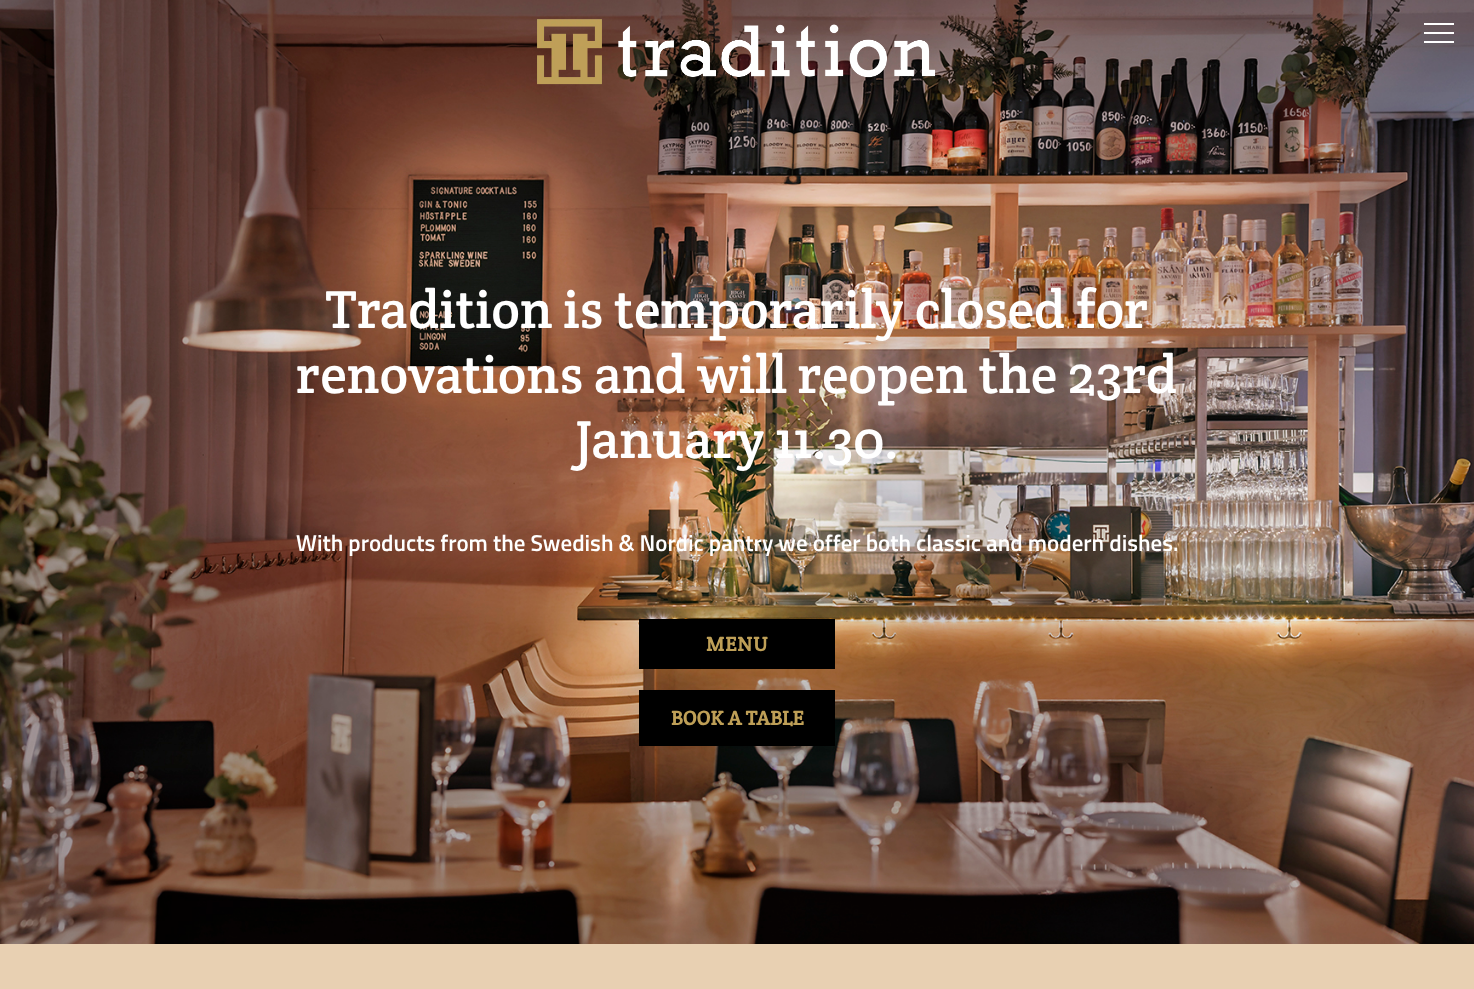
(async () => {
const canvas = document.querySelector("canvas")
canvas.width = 1474
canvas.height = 989
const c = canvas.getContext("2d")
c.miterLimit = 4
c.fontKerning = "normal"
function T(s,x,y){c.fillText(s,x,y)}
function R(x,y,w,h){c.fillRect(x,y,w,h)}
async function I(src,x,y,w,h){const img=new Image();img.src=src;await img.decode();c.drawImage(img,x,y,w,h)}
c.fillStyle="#fff"
R(0,0,1474,989)
await I("2.png",0,0,1474,944)
await I("1.png",537,19,399,66)
R(1424,23,30,2)
R(1424,32,30,2)
R(1424,41,30,2)
c.font="54px Crete Round"
T("Tradition is temporarily closed for",325,328)
T("renovations and will reopen the 23rd",296,393)
T("January 11.30.",575,458)
c.font="600 23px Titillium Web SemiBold"
T("With products from the Swedish & Nordic pantry we offer both classic and modern dishes.",296,551)
c.fillStyle="#000"
R(639,619,196,50)
c.letterSpacing="1px"
c.font="bold 20px Crete Round"
c.fillStyle="#be9f57"
T("MENU",706,651)
c.fillStyle="#000"
R(639,690,196,56)
c.letterSpacing="0px"
c.fillStyle="#be9f57"
T("BOOK A TABLE",671,725)
c.fillStyle="#e8d0b2"
R(0,944,1474,45)
})()
